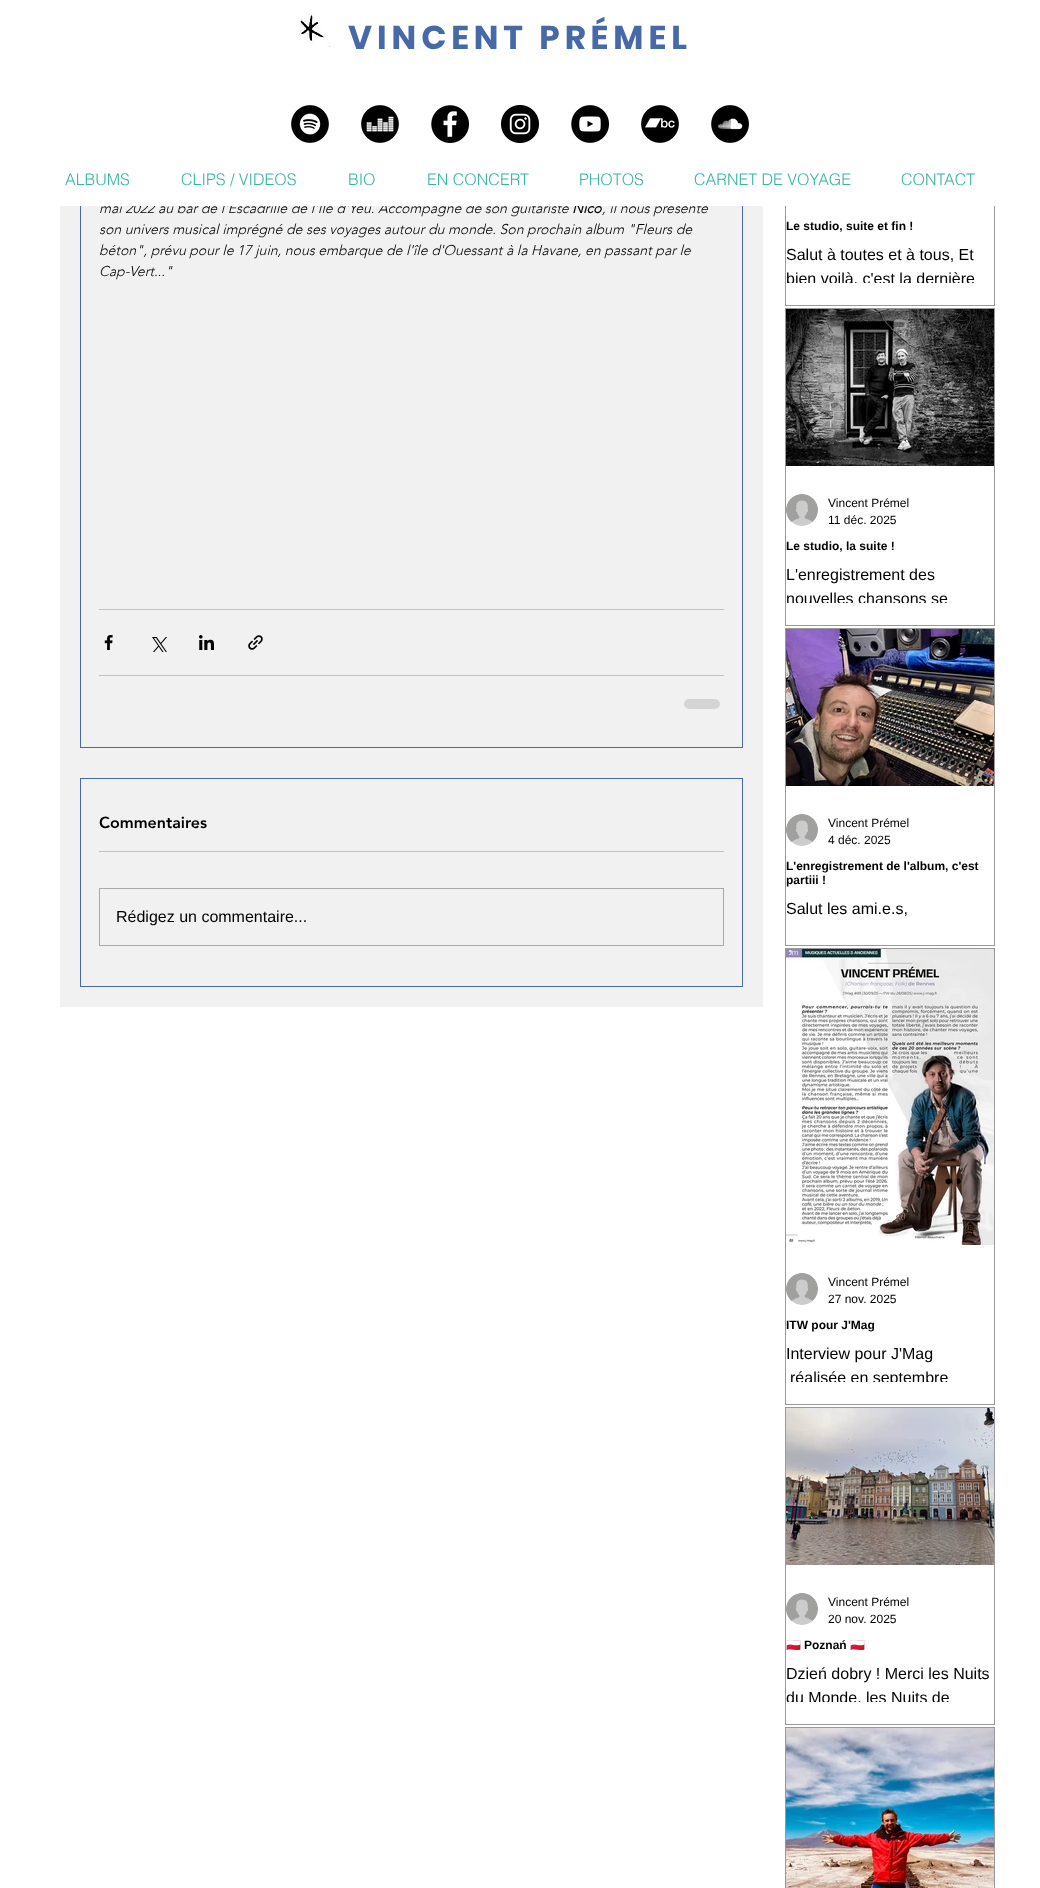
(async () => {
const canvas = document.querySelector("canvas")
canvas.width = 1040
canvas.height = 1888
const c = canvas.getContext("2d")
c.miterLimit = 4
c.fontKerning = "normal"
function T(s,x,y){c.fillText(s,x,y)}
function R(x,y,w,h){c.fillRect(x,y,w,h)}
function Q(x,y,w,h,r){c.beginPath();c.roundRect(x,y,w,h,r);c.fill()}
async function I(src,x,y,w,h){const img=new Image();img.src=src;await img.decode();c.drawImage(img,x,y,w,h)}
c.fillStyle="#fff"
R(0,0,1040,1888)
c.fillStyle="#f1f1f1"
R(60,206,703,801)
c.strokeStyle="#4769a8"
c.strokeRect(80.5,-.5,662,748)
c.font="italic 300 14px 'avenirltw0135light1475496'"
c.fillStyle="#000"
T("mai 2022 au bar de l'Escadrille de l'Ile d'Yeu. Accompagné de son guitariste",99,213)
c.font="italic bold 14px 'avenirltw0135light1475496'"
T("Nico",572,213)
c.font="italic 300 14px 'avenirltw0135light1475496'"
T(", il nous présente",602,213)
c.strokeStyle="#999"
c.strokeRect(785.5,-.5,209,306)
c.fillStyle="#fff"
R(80,0,915,206)
await I("1.png",298,14,32,33)
c.letterSpacing="5px"
c.font="bold 33px Poppins"
c.fillStyle="#4769a8"
T("VINCENT PRÉMEL",348,49)
await I("2.png",291,105,38,38)
await I("3.png",361,105,38,38)
await I("4.png",431,105,38,38)
await I("5.png",501,105,38,38)
await I("6.png",571,105,38,38)
await I("7.png",641,105,38,38)
await I("8.png",711,105,38,38)
c.letterSpacing="0px"
c.font="300 16px helvetica"
c.fillStyle="#37b3a8"
T("ALBUMS",65,185)
T("CLIPS / VIDEOS",181,185)
T("BIO",348,185)
T("EN CONCERT",427,185)
T("PHOTOS",579,185)
T("CARNET DE VOYAGE",694,185)
T("CONTACT",901,185)
c.font="italic 300 14px 'avenirltw0135light1475496'"
c.fillStyle="#000"
T("son univers musical imprégné de ses voyages autour du monde. Son prochain album \"Fleurs de",99,234)
T("béton\", prévu pour le 17 juin, nous embarque de l'île d'Ouessant à la Havane, en passant par le",99,255)
T("Cap-Vert...\"",99,276)
c.fillStyle="#c1c1c1"
R(99,609,625,1)
await I("9.png",104,635,9,15)
await I("10.png",152,637,15,15)
await I("11.png",199,635,15,15)
await I("12.png",248,635,15,15)
R(99,675,625,1)
c.fillStyle="#d4d4d4"
Q(684,699,36,10,5)
c.strokeStyle="#4769a8"
c.strokeRect(80.5,778.5,662,208)
c.font="900 16px 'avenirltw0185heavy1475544'"
c.fillStyle="#000"
T("Commentaires",99,828)
c.fillStyle="#c1c1c1"
R(99,851,625,1)
c.strokeStyle="#a9a9a9"
c.strokeRect(99.5,888.5,624,57)
c.font="16px Liberation Sans"
c.fillStyle="#000"
T("Rédigez un commentaire...",116,922)
c.font="bold 12px Liberation Sans"
T("Le studio, suite et fin !",786,230)
c.font="16px Liberation Sans"
T("Salut à toutes et à tous, Et",786,260)
c.save()
c.beginPath()
c.rect(786,243,208,40)
c.clip()
T("bien voilà, c'est la dernière",786,284)
c.restore()
c.strokeStyle="#999"
c.strokeRect(785.5,308.5,209,317)
await I("13.png",786,309,208,157)
await I("14.png",786,494,32,32)
c.font="12px Liberation Sans"
T("Vincent Prémel",828,507)
T("11 déc. 2025",828,524)
c.font="bold 12px Liberation Sans"
T("Le studio, la suite !",786,550)
c.font="16px Liberation Sans"
T("L'enregistrement des",786,580)
c.save()
c.beginPath()
c.rect(786,563,208,40)
c.clip()
T("nouvelles chansons se",786,604)
c.restore()
c.strokeRect(785.5,628.5,209,317)
await I("15.png",786,629,208,157)
await I("14.png",786,814,32,32)
c.font="12px Liberation Sans"
T("Vincent Prémel",828,827)
T("4 déc. 2025",828,844)
c.font="bold 12px Liberation Sans"
T("L'enregistrement de l'album, c'est",786,870)
T("partiii !",786,884)
c.font="16px Liberation Sans"
T("Salut les ami.e.s,",786,914)
c.strokeRect(785.5,948.5,209,456)
await I("16.png",786,949,208,296)
await I("14.png",786,1273,32,32)
c.font="12px Liberation Sans"
T("Vincent Prémel",828,1286)
T("27 nov. 2025",828,1303)
c.font="bold 12px Liberation Sans"
T("ITW pour J'Mag",786,1329)
c.font="16px Liberation Sans"
T("Interview pour J'Mag",786,1359)
c.save()
c.beginPath()
c.rect(786,1342,208,40)
c.clip()
T("réalisée en septembre",790,1383)
c.restore()
c.strokeRect(785.5,1407.5,209,317)
await I("17.png",786,1408,208,157)
await I("14.png",786,1593,32,32)
c.font="12px Liberation Sans"
T("Vincent Prémel",828,1606)
T("20 nov. 2025",828,1623)
c.font="bold 12px Noto Color Emoji"
T("🇵🇱",786,1649)
c.font="bold 12px Liberation Sans"
T("Poznań",804,1649)
c.font="bold 12px Noto Color Emoji"
T("🇵🇱",850,1649)
c.font="16px Liberation Sans"
T("Dzień dobry ! Merci les Nuits",786,1679)
c.save()
c.beginPath()
c.rect(786,1662,208,40)
c.clip()
T("du Monde, les Nuits de",786,1703)
c.restore()
c.strokeRect(785.5,1727.5,209,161)
await I("18.png",786,1728,208,160)
})()
